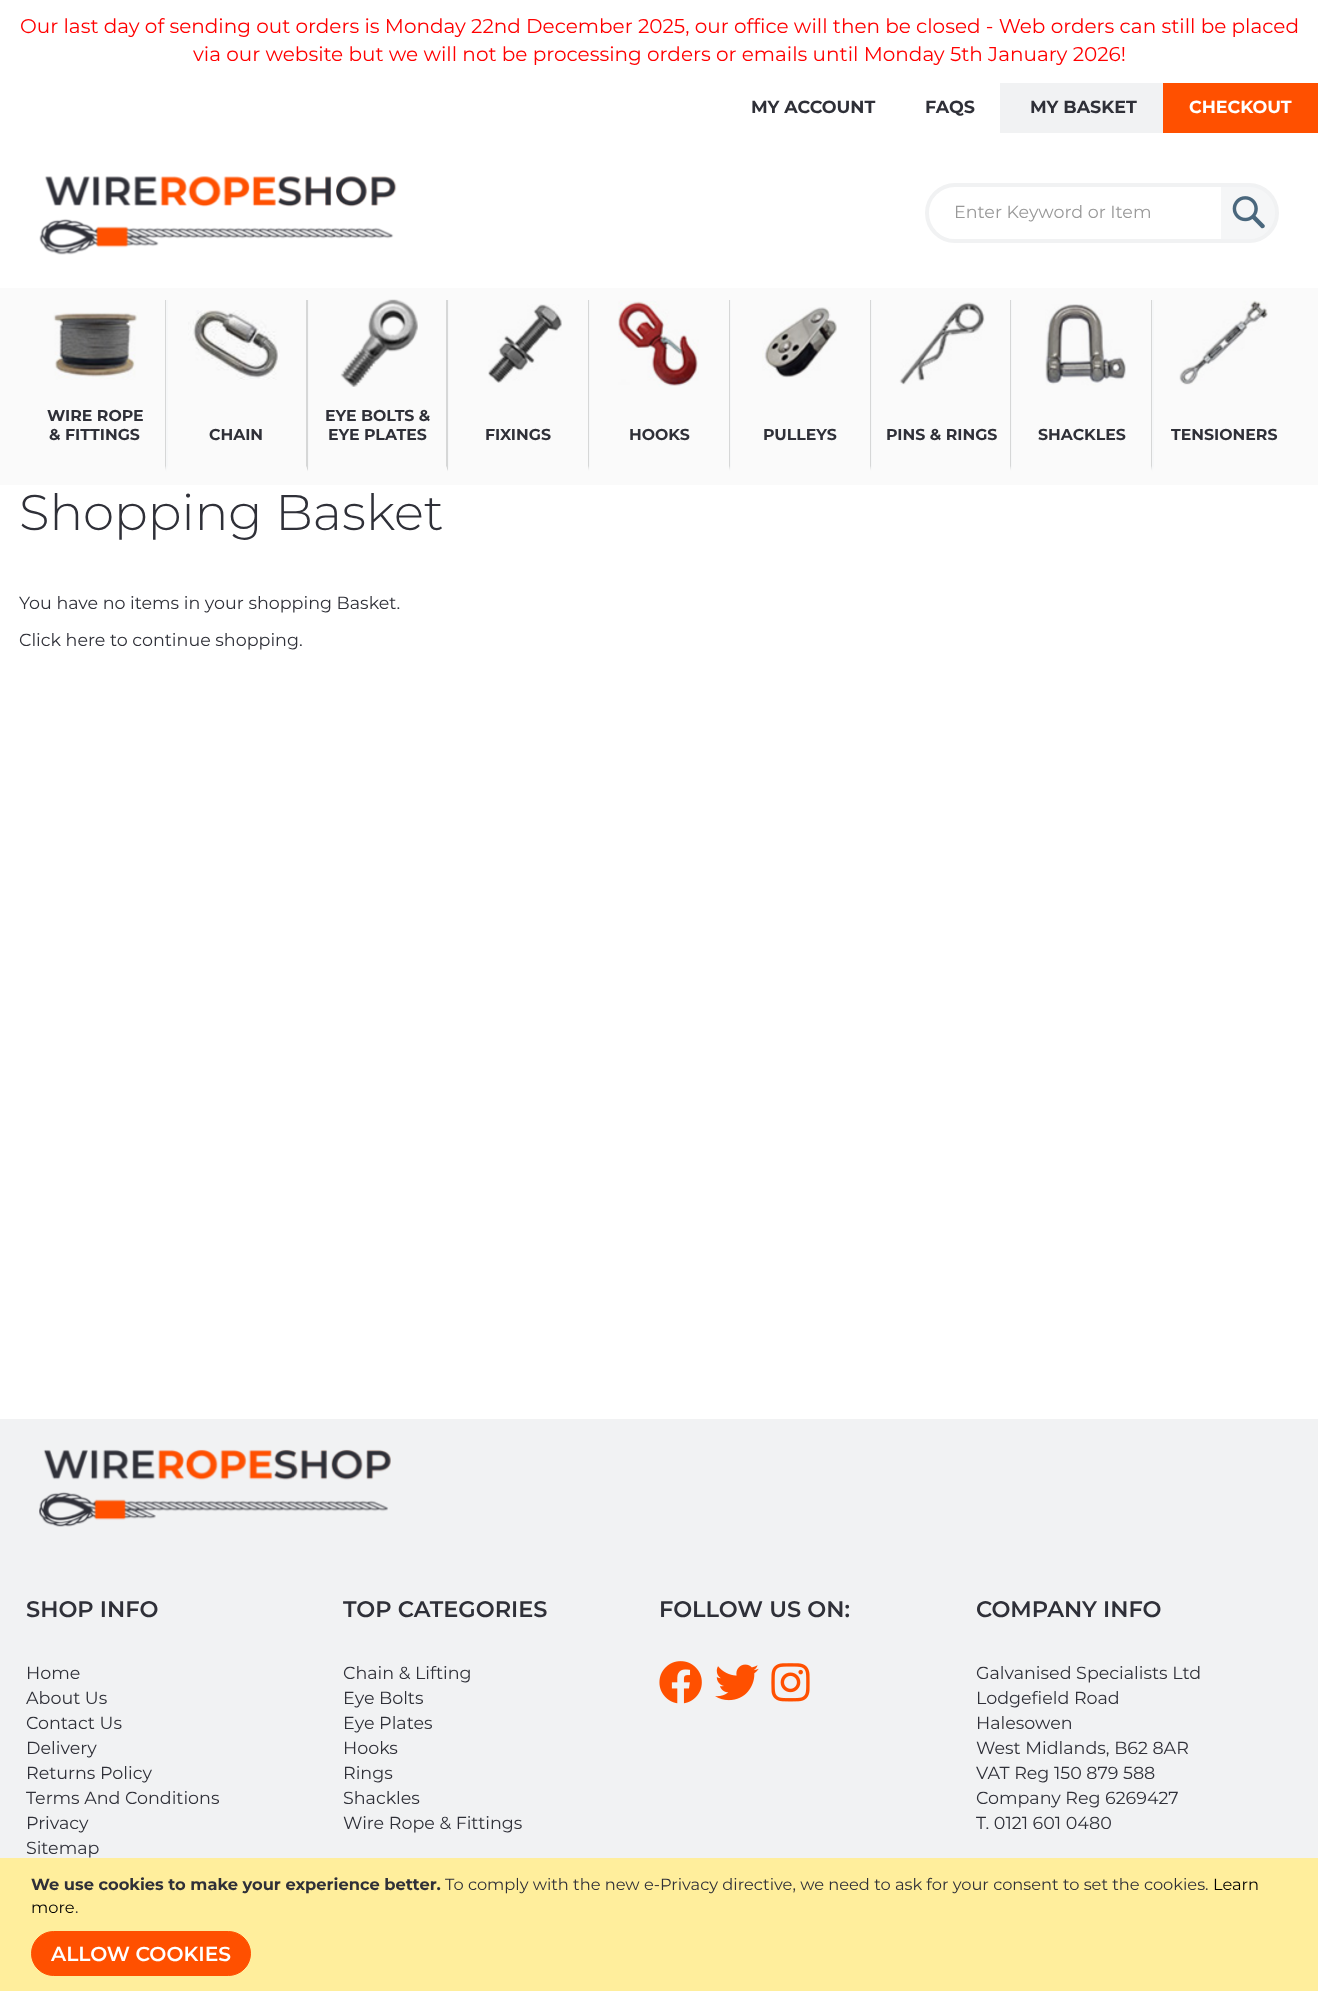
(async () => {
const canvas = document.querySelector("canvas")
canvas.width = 1318
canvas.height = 1991
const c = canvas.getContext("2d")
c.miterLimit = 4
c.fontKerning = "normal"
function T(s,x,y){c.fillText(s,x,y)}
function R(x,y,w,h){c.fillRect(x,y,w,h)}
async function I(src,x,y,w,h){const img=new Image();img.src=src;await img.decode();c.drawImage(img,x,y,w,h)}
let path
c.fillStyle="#fff"
R(0,0,1318,1991)
c.font="20px Montserrat"
c.fillStyle="#f00"
T("Our last day of sending out orders is Monday 22nd December 2025, our office will then be closed - Web orders can still be placed",20,33)
T("via our website but we will not be processing orders or emails until Monday 5th January 2026!",193,61)
c.font="bold 17.5px Montserrat"
c.fillStyle="#2f3038"
T("MY ACCOUNT",751,113)
T("FAQS",925,113)
c.fillStyle="#f1f2f3"
R(1000,83,163,50)
c.fillStyle="#2f3038"
T("MY BASKET",1030,113)
c.fillStyle="#ff5000"
R(1163,83,155,50)
c.fillStyle="#fff"
T("CHECKOUT",1189,113)
await I("1.png",39,176,358,79)
c.beginPath()
c.roundRect(927,185,350,56,28)
c.strokeStyle="#f1f2f3"
c.lineWidth=4
c.stroke()
c.font="17.5px Montserrat"
c.fillStyle="#999"
T("Enter Keyword or Item",954,218)
c.fillStyle="#f1f2f3b3"
c.beginPath()
c.roundRect(1221,185,55,55,[0,27.5,27.5,0])
c.fill()
await I("2.png",1232,196,33,33)
c.fillStyle="#fafafa"
R(0,288,1318,197)
c.fillStyle="#d6d7d7"
path = new Path2D("M166 300v172l-1-6v-166z")
c.fill(path)
c.fillStyle="#fafafa"
path = new Path2D("M166 472h-141v-6h140z")
c.fill(path)
await I("3.png",53,312,85,68)
c.font="bold 15.75px Montserrat"
c.fillStyle="#2f3038"
T("WIRE ROPE",47,421)
T("& FITTINGS",49,440)
c.fillStyle="#d6d7d7"
path = new Path2D("M308 300v172l-2-6v-166z")
c.fill(path)
c.fillStyle="#fafafa"
path = new Path2D("M308 472h-142l2-6h138z")
c.fill(path)
c.fillStyle="#f6f7f8"
path = new Path2D("M166 472v-172h2v166z")
c.fill(path)
await I("4.png",188,310,92,70)
c.fillStyle="#2f3038"
T("CHAIN",209,440)
c.fillStyle="#d6d7d7"
path = new Path2D("M448 300v172l-2-6v-166z")
c.fill(path)
c.fillStyle="#fafafa"
path = new Path2D("M448 472h-140l1-6h137z")
c.fill(path)
c.fillStyle="#f6f7f8"
path = new Path2D("M308 472v-172h1v166z")
c.fill(path)
await I("5.png",340,299,78,88)
c.fillStyle="#2f3038"
T("EYE BOLTS &",325,421)
T("EYE PLATES",328,440)
c.fillStyle="#d6d7d7"
path = new Path2D("M589 300v172l-1-6v-166z")
c.fill(path)
c.fillStyle="#fafafa"
path = new Path2D("M589 472h-141l1-6h139z")
c.fill(path)
c.fillStyle="#f6f7f8"
path = new Path2D("M448 472v-172h1v166z")
c.fill(path)
await I("6.png",488,304,74,79)
c.fillStyle="#2f3038"
T("FIXINGS",485,440)
c.fillStyle="#d6d7d7"
path = new Path2D("M730 300v172l-1-6v-166z")
c.fill(path)
c.fillStyle="#fafafa"
path = new Path2D("M730 472h-141l1-6h139z")
c.fill(path)
c.fillStyle="#f6f7f8"
path = new Path2D("M589 472v-172h1v166z")
c.fill(path)
await I("7.png",618,300,81,87)
c.fillStyle="#2f3038"
T("HOOKS",629,440)
c.fillStyle="#d6d7d7"
path = new Path2D("M871 300v172l-1-6v-166z")
c.fill(path)
c.fillStyle="#fafafa"
path = new Path2D("M871 472h-141l1-6h139z")
c.fill(path)
c.fillStyle="#f6f7f8"
path = new Path2D("M730 472v-172h1v166z")
c.fill(path)
await I("8.png",762,307,75,71)
c.fillStyle="#2f3038"
T("PULLEYS",763,440)
c.fillStyle="#d6d7d7"
path = new Path2D("M1011 300v172l-1-6v-166z")
c.fill(path)
c.fillStyle="#fafafa"
path = new Path2D("M1011 472h-140l1-6h138z")
c.fill(path)
c.fillStyle="#f6f7f8"
path = new Path2D("M871 472v-172h1v166z")
c.fill(path)
await I("9.png",899,302,86,83)
c.fillStyle="#2f3038"
T("PINS & RINGS",886,440)
c.fillStyle="#d6d7d7"
path = new Path2D("M1152 300v172l-1-6v-166z")
c.fill(path)
c.fillStyle="#fafafa"
path = new Path2D("M1152 472h-141l1-6h139z")
c.fill(path)
c.fillStyle="#f6f7f8"
path = new Path2D("M1011 472v-172h1v166z")
c.fill(path)
await I("10.png",1045,304,81,82)
c.fillStyle="#2f3038"
T("SHACKLES",1038,440)
c.fillStyle="#f6f7f8"
path = new Path2D("M1152 472v-172h2v166z")
c.fill(path)
await I("11.png",1179,300,89,85)
c.fillStyle="#2f3038"
T("TENSIONERS",1171,440)
c.font="300 50px Montserrat"
T("Shopping Basket",19,530)
c.font="17.5px Montserrat"
T("You have no items in your shopping Basket.",19,609)
T("Click here to continue shopping.",19,646)
c.fillStyle="#f1f2f3"
R(0,1419,1318,439)
await I("12.png",39,1449,352,78)
c.font="600 22.5px Montserrat"
c.fillStyle="#2f3038"
T("SHOP INFO",26,1617)
c.font="17.5px Montserrat"
T("Home",26,1679)
T("About Us",26,1704)
T("Contact Us",26,1729)
T("Delivery",26,1754)
T("Returns Policy",26,1779)
T("Terms And Conditions",26,1804)
T("Privacy",26,1829)
T("Sitemap",26,1854)
c.font="600 22.5px Montserrat"
T("TOP CATEGORIES",343,1617)
c.font="17.5px Montserrat"
T("Chain & Lifting",343,1679)
T("Eye Bolts",343,1704)
T("Eye Plates",343,1729)
T("Hooks",343,1754)
T("Rings",343,1779)
T("Shackles",343,1804)
T("Wire Rope & Fittings",343,1829)
c.font="600 22.5px Montserrat"
T("FOLLOW US ON:",659,1617)
await I("13.png",659,1661,43,43)
await I("14.png",715,1664,44,37)
await I("15.png",771,1663,39,39)
T("COMPANY INFO",976,1617)
c.font="17.5px Montserrat"
T("Galvanised Specialists Ltd",976,1679)
T("Lodgefield Road",976,1704)
T("Halesowen",976,1729)
T("West Midlands, B62 8AR",976,1754)
T("VAT Reg 150 879 588",976,1779)
T("Company Reg 6269427",976,1804)
T("T. 0121 601 0480",976,1829)
c.fillStyle="#ffee9c"
R(0,1858,1318,133)
c.font="bold 16.25px Montserrat"
c.fillStyle="#2f3038"
T("We use cookies to make your experience better.",31,1890)
c.font="16.25px Montserrat"
T("To comply with the new e-Privacy directive, we need to ask for your consent to set the cookies.",445,1890)
c.fillStyle="#000"
T("Learn",1213,1890)
T("more",31,1913)
c.fillStyle="#2f3038"
T(".",75,1913)
c.fillStyle="#ff5000"
c.beginPath()
c.roundRect(31.5,1931.5,219,44,22)
c.fill()
c.strokeStyle="#ff5000"
c.lineWidth=1
c.stroke()
c.font="600 20.25px Montserrat"
c.fillStyle="#fff"
T("ALLOW COOKIES",51,1961)
})()
